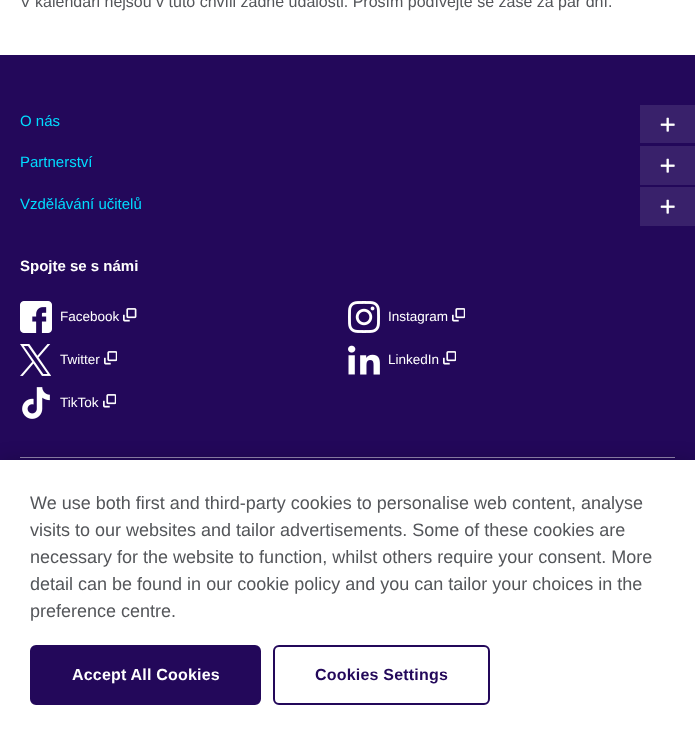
(async () => {
const canvas = document.querySelector("canvas")
canvas.width = 695
canvas.height = 739
const c = canvas.getContext("2d")
c.miterLimit = 4
c.fontKerning = "normal"
function T(s,x,y){c.fillText(s,x,y)}
function R(x,y,w,h){c.fillRect(x,y,w,h)}
async function I(src,x,y,w,h){const img=new Image();img.src=src;await img.decode();c.drawImage(img,x,y,w,h)}
c.fillStyle="#fff"
R(0,0,695,739)
c.font="16px Liberation Sans"
c.fillStyle="#54565a"
T("V kalendáři nejsou v tuto chvíli žádné události. Prosím podívejte se zase za pár dní.",20,7)
c.fillStyle="#23085a"
R(0,55,695,405)
c.font="15px Liberation Sans"
c.fillStyle="#00dcff"
T("O nás",20,126)
c.fillStyle="#39216b"
R(640,105,55,38)
await I("1.png",660,117,15,15)
c.fillStyle="#00dcff"
T("Partnerství",20,167)
c.fillStyle="#39216b"
R(640,146,55,39)
await I("1.png",660,158,15,15)
c.fillStyle="#00dcff"
T("Vzdělávání učitelů",20,209)
c.fillStyle="#39216b"
R(640,187,55,39)
await I("1.png",660,199,15,15)
c.font="bold 15px Liberation Sans"
c.fillStyle="#fff"
T("Spojte se s námi",20,271)
await I("2.png",20,301,32,32)
c.font="13.5px Liberation Sans"
T("Facebook",60,321)
await I("3.png",123,308,14,14)
await I("4.png",348,301,32,32)
T("Instagram",388,321)
await I("5.png",452,308,13,14)
await I("6.png",20,344,31,32)
T("Twitter",60,364)
await I("5.png",104,351,13,14)
await I("7.png",348,345,32,30)
T("LinkedIn",388,364)
await I("5.png",443,351,13,14)
await I("8.png",22,387,28,32)
T("TikTok",60,407)
await I("5.png",103,394,13,14)
c.fillStyle="#9184ad"
R(20,457,655,1)
c.fillStyle="#00000033"
c.filter="blur(9px)"
c.beginPath()
c.rect(0,460,695,279)
c.fill()
c.filter="none"
c.fillStyle="#fff"
R(0,460,695,279)
c.font="18px Liberation Sans"
c.fillStyle="#54565a"
T("We use both first and third-party cookies to personalise web content, analyse",30,509)
T("visits to our websites and tailor advertisements. Some of these cookies are",30,536)
T("necessary for the website to function, whilst others require your consent. More",30,563)
T("detail can be found in our cookie policy and you can tailor your choices in the",30,590)
T("preference centre.",30,617)
c.fillStyle="#23085a"
c.beginPath()
c.roundRect(31,646,229,58,5)
c.fill()
c.strokeStyle="#23085a"
c.lineWidth=2
c.stroke()
c.letterSpacing="0.2px"
c.font="bold 16px Liberation Sans"
c.fillStyle="#fff"
T("Accept All Cookies",72,680)
c.beginPath()
c.roundRect(274,646,215,58,5)
c.stroke()
c.fillStyle="#23085a"
T("Cookies Settings",315,680)
})()
